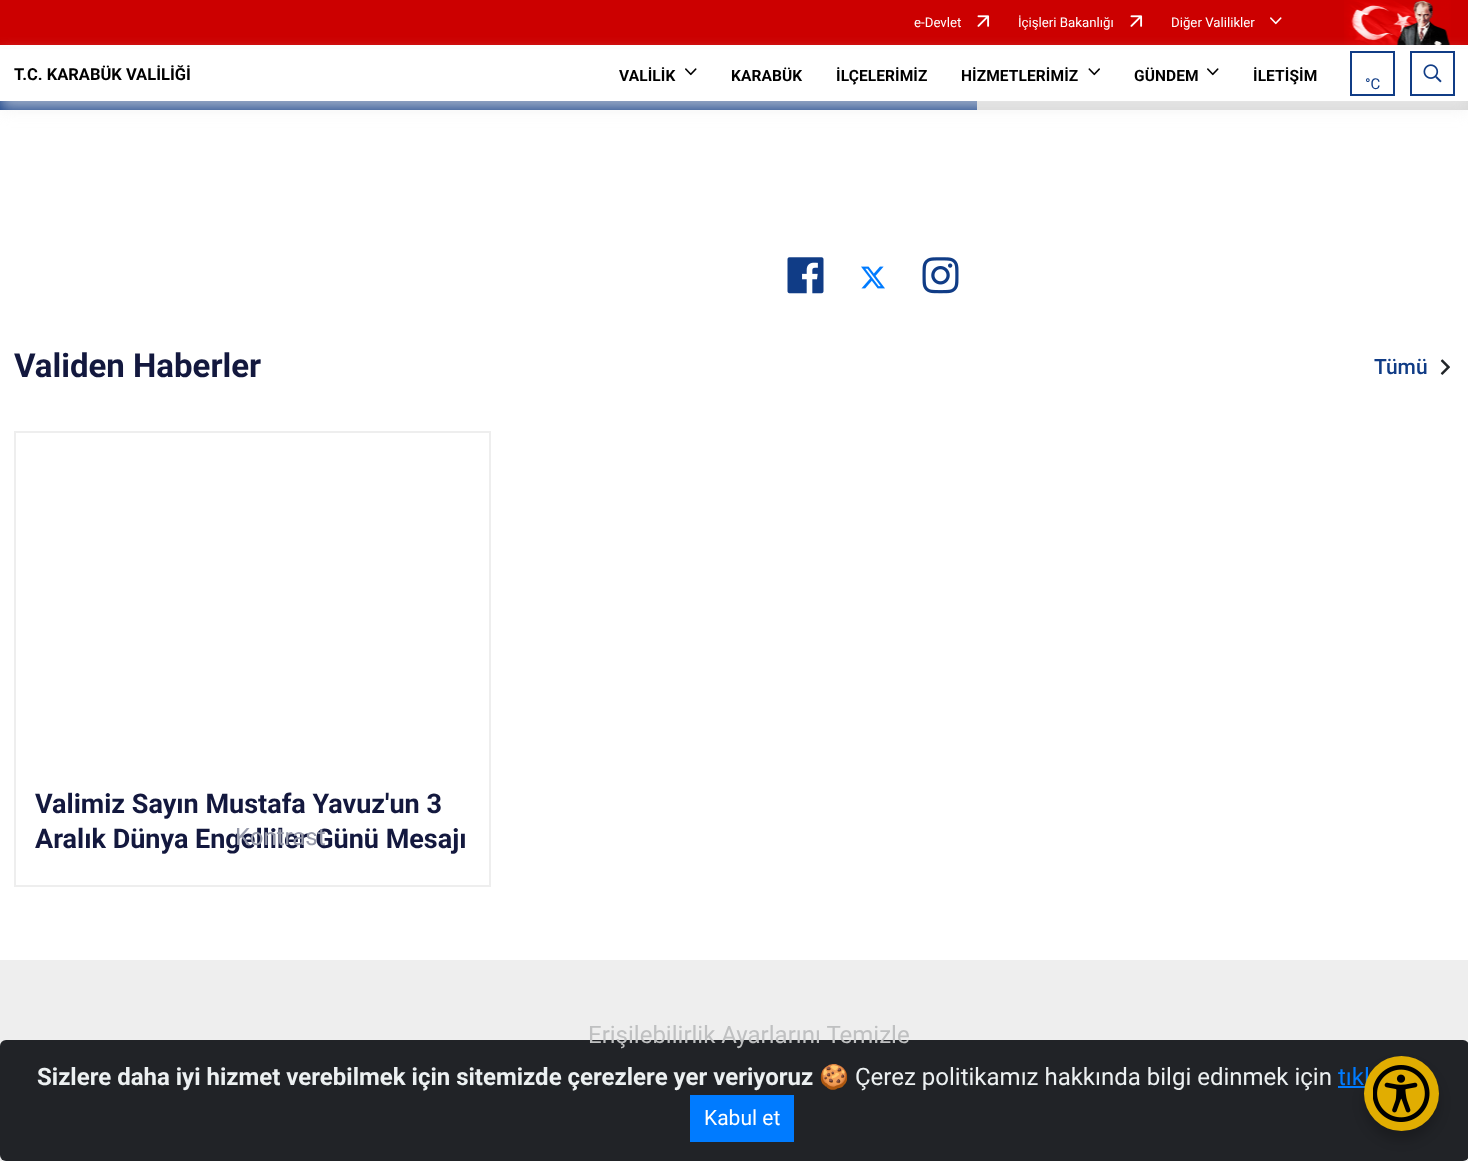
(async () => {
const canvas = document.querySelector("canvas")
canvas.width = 1468
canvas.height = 1161
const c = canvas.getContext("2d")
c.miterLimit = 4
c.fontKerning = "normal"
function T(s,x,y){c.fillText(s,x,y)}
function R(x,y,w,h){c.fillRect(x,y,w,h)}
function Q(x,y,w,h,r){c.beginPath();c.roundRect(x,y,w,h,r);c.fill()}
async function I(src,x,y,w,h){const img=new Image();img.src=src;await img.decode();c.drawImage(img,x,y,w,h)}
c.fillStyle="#fff"
R(0,0,1468,1161)
c.fillStyle="#c00"
R(0,0,1468,45)
c.font="13.25px Roboto"
c.fillStyle="#fff"
T("e-Devlet",914,27)
await I("1.png",977,15,13,12)
T("İçişleri Bakanlığı",1018,27)
await I("1.png",1130,15,13,12)
T("Diğer Valilikler",1171,27)
await I("2.png",1270,17,12,8)
await I("3.png",1344,0,107,45)
c.fillStyle="#d7d7d7"
R(977,101,491,9)
c.fillStyle="#103c86"
R(0,101,977,9)
c.fillStyle="#eeeeee9e"
c.filter="blur(7.5px)"
c.beginPath()
c.rect(0,54,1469,56)
c.fill()
c.filter="none"
c.fillStyle="#fff"
R(0,49,1468,52)
c.font="bold 16.5px Roboto"
c.fillStyle="#000"
T("T.C. KARABÜK VALİLİĞİ",14,80)
c.letterSpacing="0.1px"
c.font="bold 15.5px Roboto"
T("VALİLİK",619,81)
await I("4.png",685,68,12,8)
T("KARABÜK",731,81)
T("İLÇELERİMİZ",836,81)
T("HİZMETLERİMİZ",961,81)
await I("5.png",1088,68,12,8)
T("GÜNDEM",1134,81)
await I("4.png",1207,68,12,8)
T("İLETİŞİM",1253,81)
c.strokeStyle="#103c86"
c.lineWidth=2
c.strokeRect(1351,52,43,43)
c.letterSpacing="0px"
c.font="15px Roboto"
c.fillStyle="#103c86"
T("°C",1365,89)
c.strokeRect(1411,52,43,43)
await I("6.png",1423,64,19,19)
await I("7.png",787,257,37,37)
await I("8.png",861,266,24,23)
await I("9.png",922,257,37,37)
c.font="bold 33px Roboto"
c.fillStyle="#13183e"
T("Validen Haberler",14,377)
c.font="500 21px Roboto"
c.fillStyle="#103c86"
T("Tümü",1374,374)
await I("10.png",1440,359,10,16)
c.strokeStyle="#eee"
c.strokeRect(15,432,475,454)
c.font="bold 27px Roboto"
c.fillStyle="#13183e"
T("Valimiz Sayın Mustafa Yavuz'un 3",35,813)
T("Aralık Dünya Engelliler Günü Mesajı",35,848)
c.fillStyle="#eee"
R(0,960,1468,201)
c.font="24px Roboto"
c.fillStyle="#979aaa"
T("Kontrast",235,845)
c.fillStyle="#212327"
Q(0,1040,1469,121,6)
c.fillStyle="#bfc0c1"
T("Erişilebilirlik Ayarlarını Temizle",588,1043)
c.fillStyle="#007bff"
R(1338,1086,27,2)
c.fillStyle="#00000033"
c.filter="blur(6px)"
c.beginPath()
c.roundRect(1364,1065,75,75,37.5)
c.fill()
c.filter="none"
c.fillStyle="#007bff"
T("tıkl",1338,1085)
c.fillStyle="#e1ad01"
c.beginPath()
c.arc(1401.5,1093.5,37.5,0,7)
c.fill()
await I("11.png",1373,1065,57,57)
c.font="bold 24px Roboto"
c.fillStyle="#ecf0f1"
T("Sizlere daha iyi hizmet verebilmek için sitemizde çerezlere yer veriyoruz",37,1085)
c.font="24px Noto Color Emoji"
T("🍪",819,1085)
c.font="24px Roboto"
T("Çerez politikamız hakkında bilgi edinmek için",855,1085)
c.fillStyle="#007bff"
R(690,1095,104,47)
c.font="21px Roboto"
c.fillStyle="#fff"
T("Kabul et",704,1125)
})()
